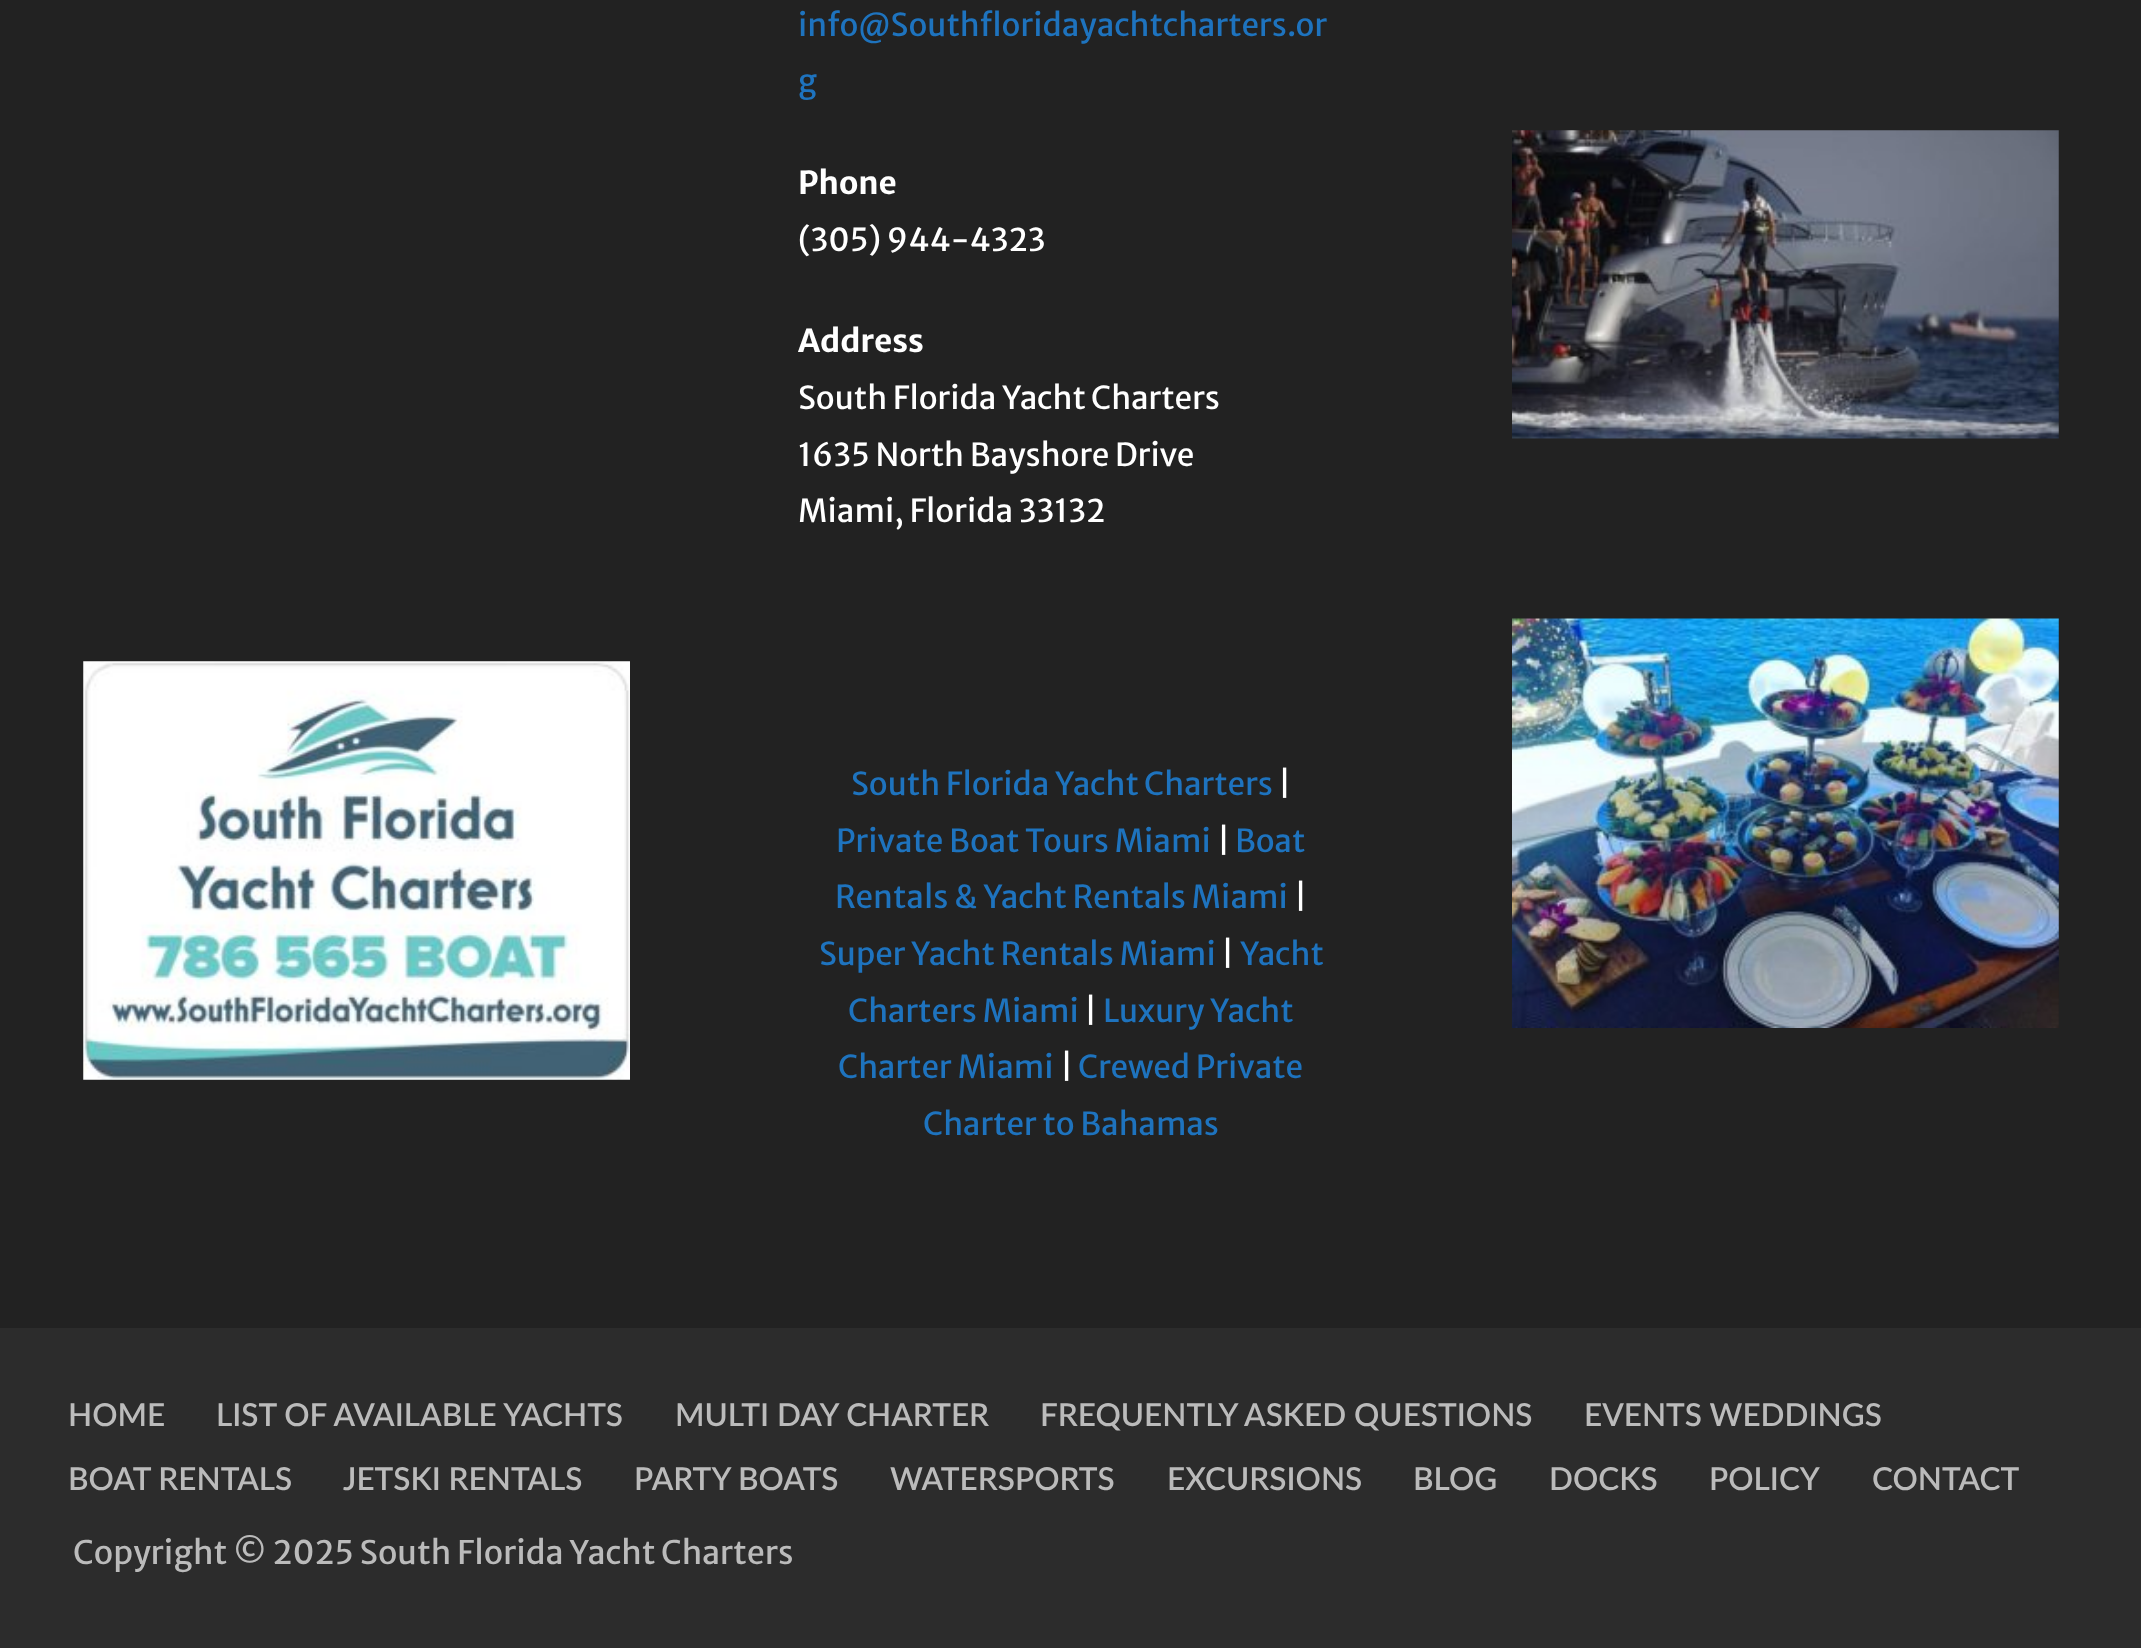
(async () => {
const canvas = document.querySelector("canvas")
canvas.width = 2141
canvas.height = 1648
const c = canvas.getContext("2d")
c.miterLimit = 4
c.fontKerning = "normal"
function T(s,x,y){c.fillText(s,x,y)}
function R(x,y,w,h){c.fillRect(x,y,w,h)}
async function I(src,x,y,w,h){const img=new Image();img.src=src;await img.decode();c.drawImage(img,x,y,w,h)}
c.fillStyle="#222"
R(0,0,2141,1648)
await I("1.png",83,661,547,419)
c.font="31.5px Merriweather Sans"
c.fillStyle="#1e73be"
T("info@Southfloridayachtcharters.or",798,36)
T("g",798,92)
c.font="bold 31.5px Merriweather Sans"
c.fillStyle="#fff"
T("Phone",798,194)
c.font="31.5px Merriweather Sans"
T("(305) 944-4323",798,251)
c.font="bold 31.5px Merriweather Sans"
T("Address",798,352)
c.font="31.5px Merriweather Sans"
T("South Florida Yacht Charters",798,409)
T("1635 North Bayshore Drive",798,466)
T("Miami, Florida 33132",798,522)
c.fillStyle="#1e73be"
T("South Florida Yacht Charters",851,795)
c.fillStyle="#fff"
T("|",1278,795)
c.fillStyle="#1e73be"
T("Private Boat Tours Miami",836,852)
c.fillStyle="#fff"
T("|",1217,852)
c.fillStyle="#1e73be"
T("Boat",1235,852)
T("Rentals & Yacht Rentals Miami",835,908)
c.fillStyle="#fff"
T("|",1294,908)
c.fillStyle="#1e73be"
T("Super Yacht Rentals Miami",819,965)
c.fillStyle="#fff"
T("|",1221,965)
c.fillStyle="#1e73be"
T("Yacht",1240,965)
T("Charters Miami",848,1022)
c.fillStyle="#fff"
T("|",1084,1022)
c.fillStyle="#1e73be"
T("Luxury Yacht",1103,1022)
T("Charter Miami",838,1078)
c.fillStyle="#fff"
T("|",1060,1078)
c.fillStyle="#1e73be"
T("Crewed Private",1078,1078)
T("Charter to Bahamas",923,1135)
await I("2.png",1512,130,547,309)
await I("3.png",1512,618,547,410)
c.fillStyle="#2c2c2c"
R(0,1328,2141,320)
c.font="600 31.5px Lato"
c.fillStyle="#bbb"
T("HOME",68,1426)
T("LIST OF AVAILABLE YACHTS",216,1426)
T("MULTI DAY CHARTER",675,1426)
T("FREQUENTLY ASKED QUESTIONS",1040,1426)
T("EVENTS WEDDINGS",1584,1426)
T("BOAT RENTALS",68,1490)
T("JETSKI RENTALS",343,1490)
T("PARTY BOATS",634,1490)
T("WATERSPORTS",890,1490)
T("EXCURSIONS",1167,1490)
T("BLOG",1413,1490)
T("DOCKS",1549,1490)
T("POLICY",1709,1490)
T("CONTACT",1872,1490)
c.font="32.4px Merriweather Sans"
T("Copyright © 2025 South Florida Yacht Charters",73,1564)
})()
